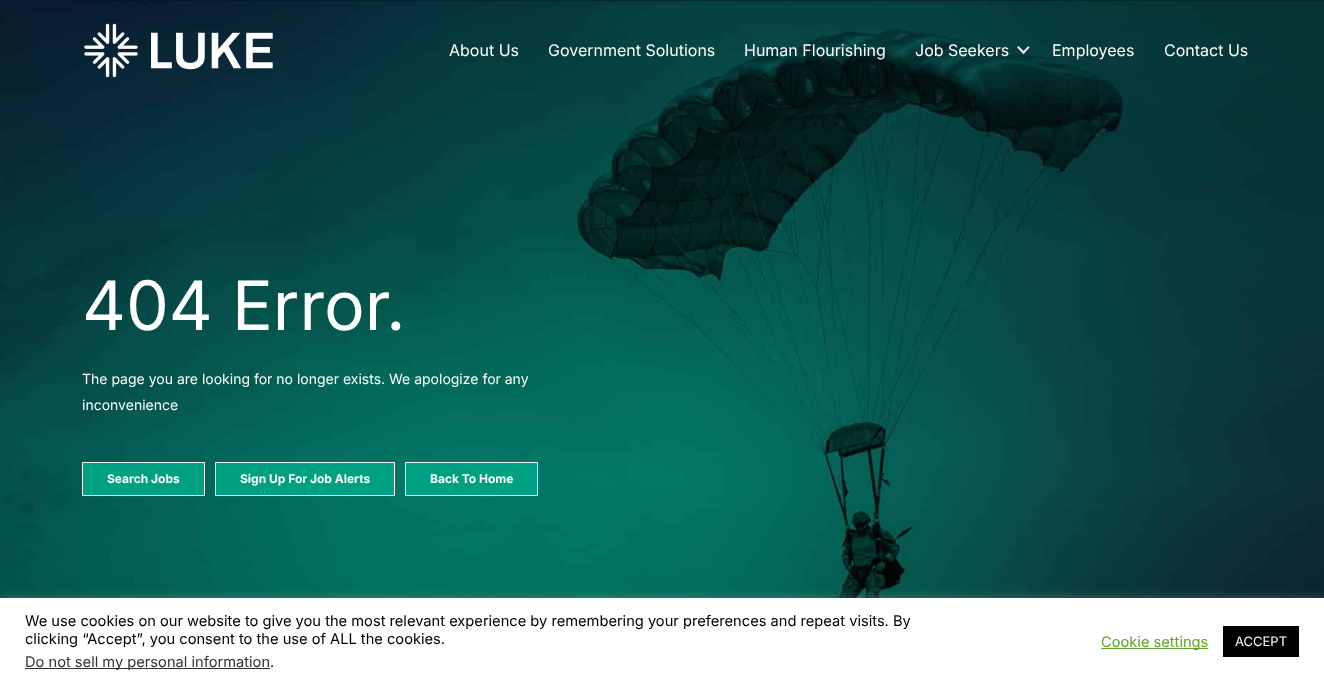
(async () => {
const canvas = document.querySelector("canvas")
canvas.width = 1324
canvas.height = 685
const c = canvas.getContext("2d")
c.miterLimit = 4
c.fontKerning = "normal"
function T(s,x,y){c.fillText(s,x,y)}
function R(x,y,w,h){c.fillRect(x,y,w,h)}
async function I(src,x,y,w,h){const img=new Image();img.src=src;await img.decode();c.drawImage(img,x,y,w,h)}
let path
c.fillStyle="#fff"
R(0,0,1324,685)
await I("2.png",0,0,1324,598)
await I("1.png",84,23,189,55)
c.font="16px Inter"
T("About Us",449,56)
T("Government Solutions",548,56)
T("Human Flourishing",744,56)
T("Job Seekers",915,56)
c.fillStyle="#f5f5f5"
path = new Path2D("M1028.5 46l1 1.5l-6 6.5l-1.5-1.5z")
c.fill(path)
path = new Path2D("M1018.5 46l6.5 6.5l-1.5 1.5l-6.5-6.5z")
c.fill(path)
c.fillStyle="#fff"
T("Employees",1052,56)
T("Contact Us",1164,56)
c.font="68px Inter"
T("404 Error.",82,330)
c.font="14px Inter"
T("The page you are looking for no longer exists. We apologize for any",82,384)
T("inconvenience",82,410)
c.fillStyle="#00a182"
c.beginPath()
c.rect(82.5,462.5,122,33)
c.fill()
c.strokeStyle="#f3f3f3"
c.stroke()
c.font="bold 12px Inter"
c.fillStyle="#fff"
T("Search Jobs",107,483)
c.fillStyle="#00a182"
c.beginPath()
c.rect(215.5,462.5,179,33)
c.fill()
c.stroke()
c.fillStyle="#fff"
T("Sign Up For Job Alerts",240,483)
c.fillStyle="#00a182"
c.beginPath()
c.rect(405.5,462.5,132,33)
c.fill()
c.stroke()
c.fillStyle="#fff"
T("Back To Home",430,483)
c.fillStyle="#acabab4d"
c.filter="blur(5px)"
c.beginPath()
c.rect(0,597,1324,87)
c.fill()
c.filter="none"
c.fillStyle="#fff"
R(0,598,1324,87)
c.font="14.67px Inter"
c.fillStyle="#000"
T("We use cookies on our website to give you the most relevant experience by remembering your preferences and repeat visits. By",25,626)
T("clicking “Accept”, you consent to the use of ALL the cookies.",25,644)
c.fillStyle="#333"
R(25,668,245,1)
T("Do not sell my personal information",25,667)
c.fillStyle="#000"
T(".",270,667)
c.fillStyle="#62a329"
R(1101,648,107,1)
T("Cookie settings",1101,647)
c.fillStyle="#000"
R(1223,626,76,31)
c.font="13px Inter"
c.fillStyle="#fff"
T("ACCEPT",1235,646)
})()
